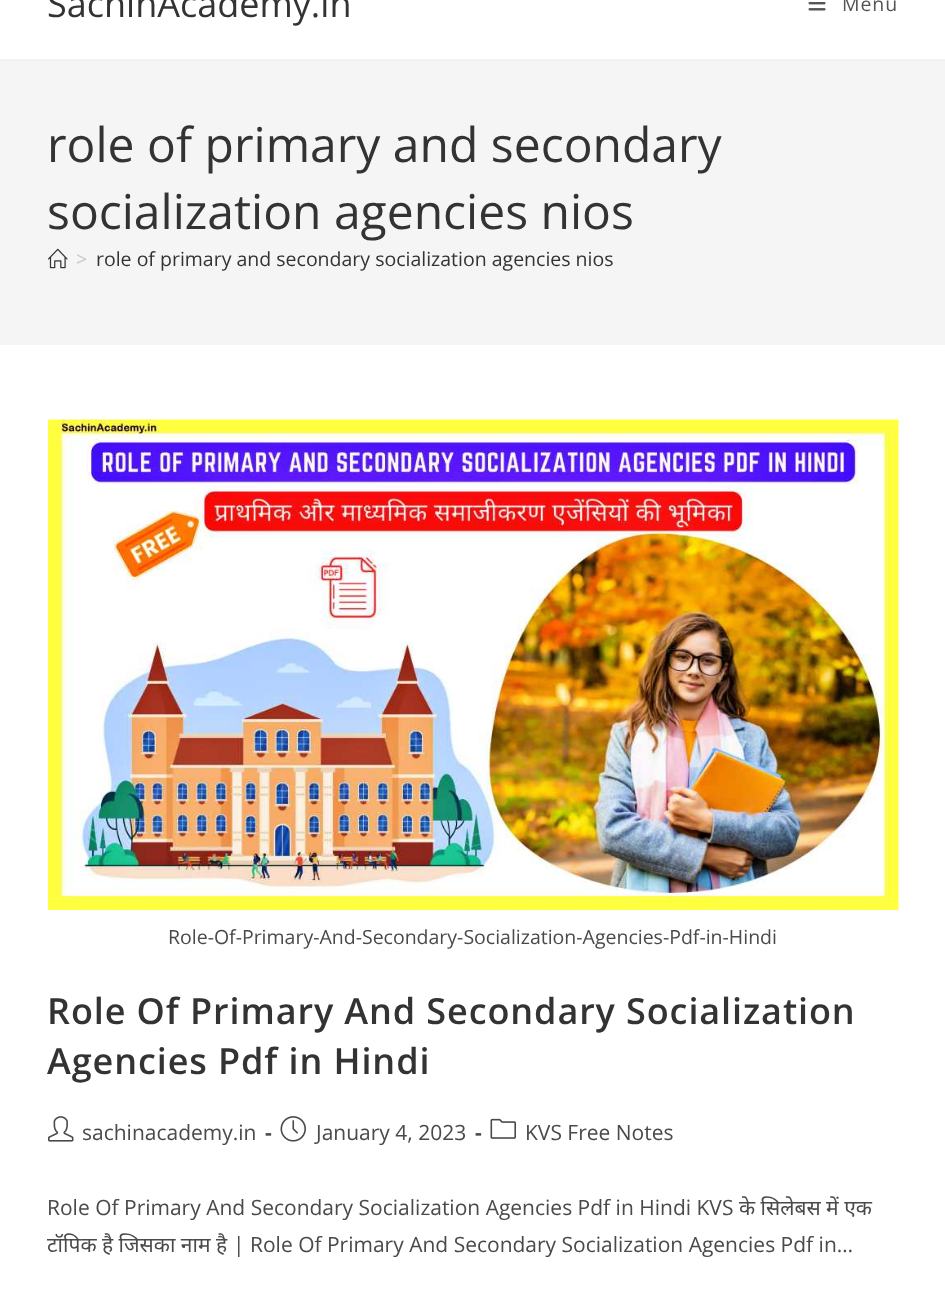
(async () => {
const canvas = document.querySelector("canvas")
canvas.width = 945
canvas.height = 1293
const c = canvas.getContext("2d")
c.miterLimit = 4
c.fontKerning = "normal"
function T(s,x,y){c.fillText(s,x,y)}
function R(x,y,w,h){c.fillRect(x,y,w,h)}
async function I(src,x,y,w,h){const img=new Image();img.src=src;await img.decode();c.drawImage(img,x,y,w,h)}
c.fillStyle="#fff"
R(0,0,945,1293)
c.fillStyle="#f1f1f1"
R(0,59,945,2)
c.font="36px Open Sans"
c.fillStyle="#333"
T("SachinAcademy.in",47,17)
await I("1.png",808,2,18,9)
c.letterSpacing="0.9px"
c.font="19.5px Open Sans"
c.fillStyle="#555"
T("Menu",842,11)
c.fillStyle="#f5f5f5"
R(0,61,945,284)
c.letterSpacing="0px"
c.font="48px Open Sans"
c.fillStyle="#333"
T("role of primary and secondary",47,162)
T("socialization agencies nios",47,229)
await I("2.png",48,248,20,21)
c.font="19.5px Open Sans"
c.fillStyle="#c6c6c6"
T(">",76,266)
c.fillStyle="#333"
T("role of primary and secondary socialization agencies nios",96,266)
await I("3.png",48,419,851,491)
c.fillStyle="#4a4a4a"
T("Role-Of-Primary-And-Secondary-Socialization-Agencies-Pdf-in-Hindi",168,944)
c.letterSpacing="0.9px"
c.font="600 36px Open Sans"
c.fillStyle="#333"
T("Role Of Primary And Secondary Socialization",47,1024)
T("Agencies Pdf in Hindi",47,1074)
await I("4.png",48,1116,26,26)
c.letterSpacing="0px"
c.font="21px Open Sans"
c.fillStyle="#4a4a4a"
T("sachinacademy.in",82,1140)
c.font="bold 21px Open Sans"
T("-",265,1140)
await I("5.png",280,1116,26,26)
c.font="21px Open Sans"
T("January 4, 2023",316,1140)
c.font="bold 21px Open Sans"
T("-",475,1140)
await I("6.png",490,1118,26,21)
c.font="21px Open Sans"
T("KVS Free Notes",525,1140)
T("Role Of Primary And Secondary Socialization Agencies Pdf in Hindi KVS",47,1215)
c.font="21px Noto Sans"
T("के सिलेबस में एक",739,1215)
T("टॉपिक है जिसका नाम है",47,1252)
c.font="21px Open Sans"
T("| Role Of Primary And Secondary Socialization Agencies Pdf in…",233,1252)
})()
